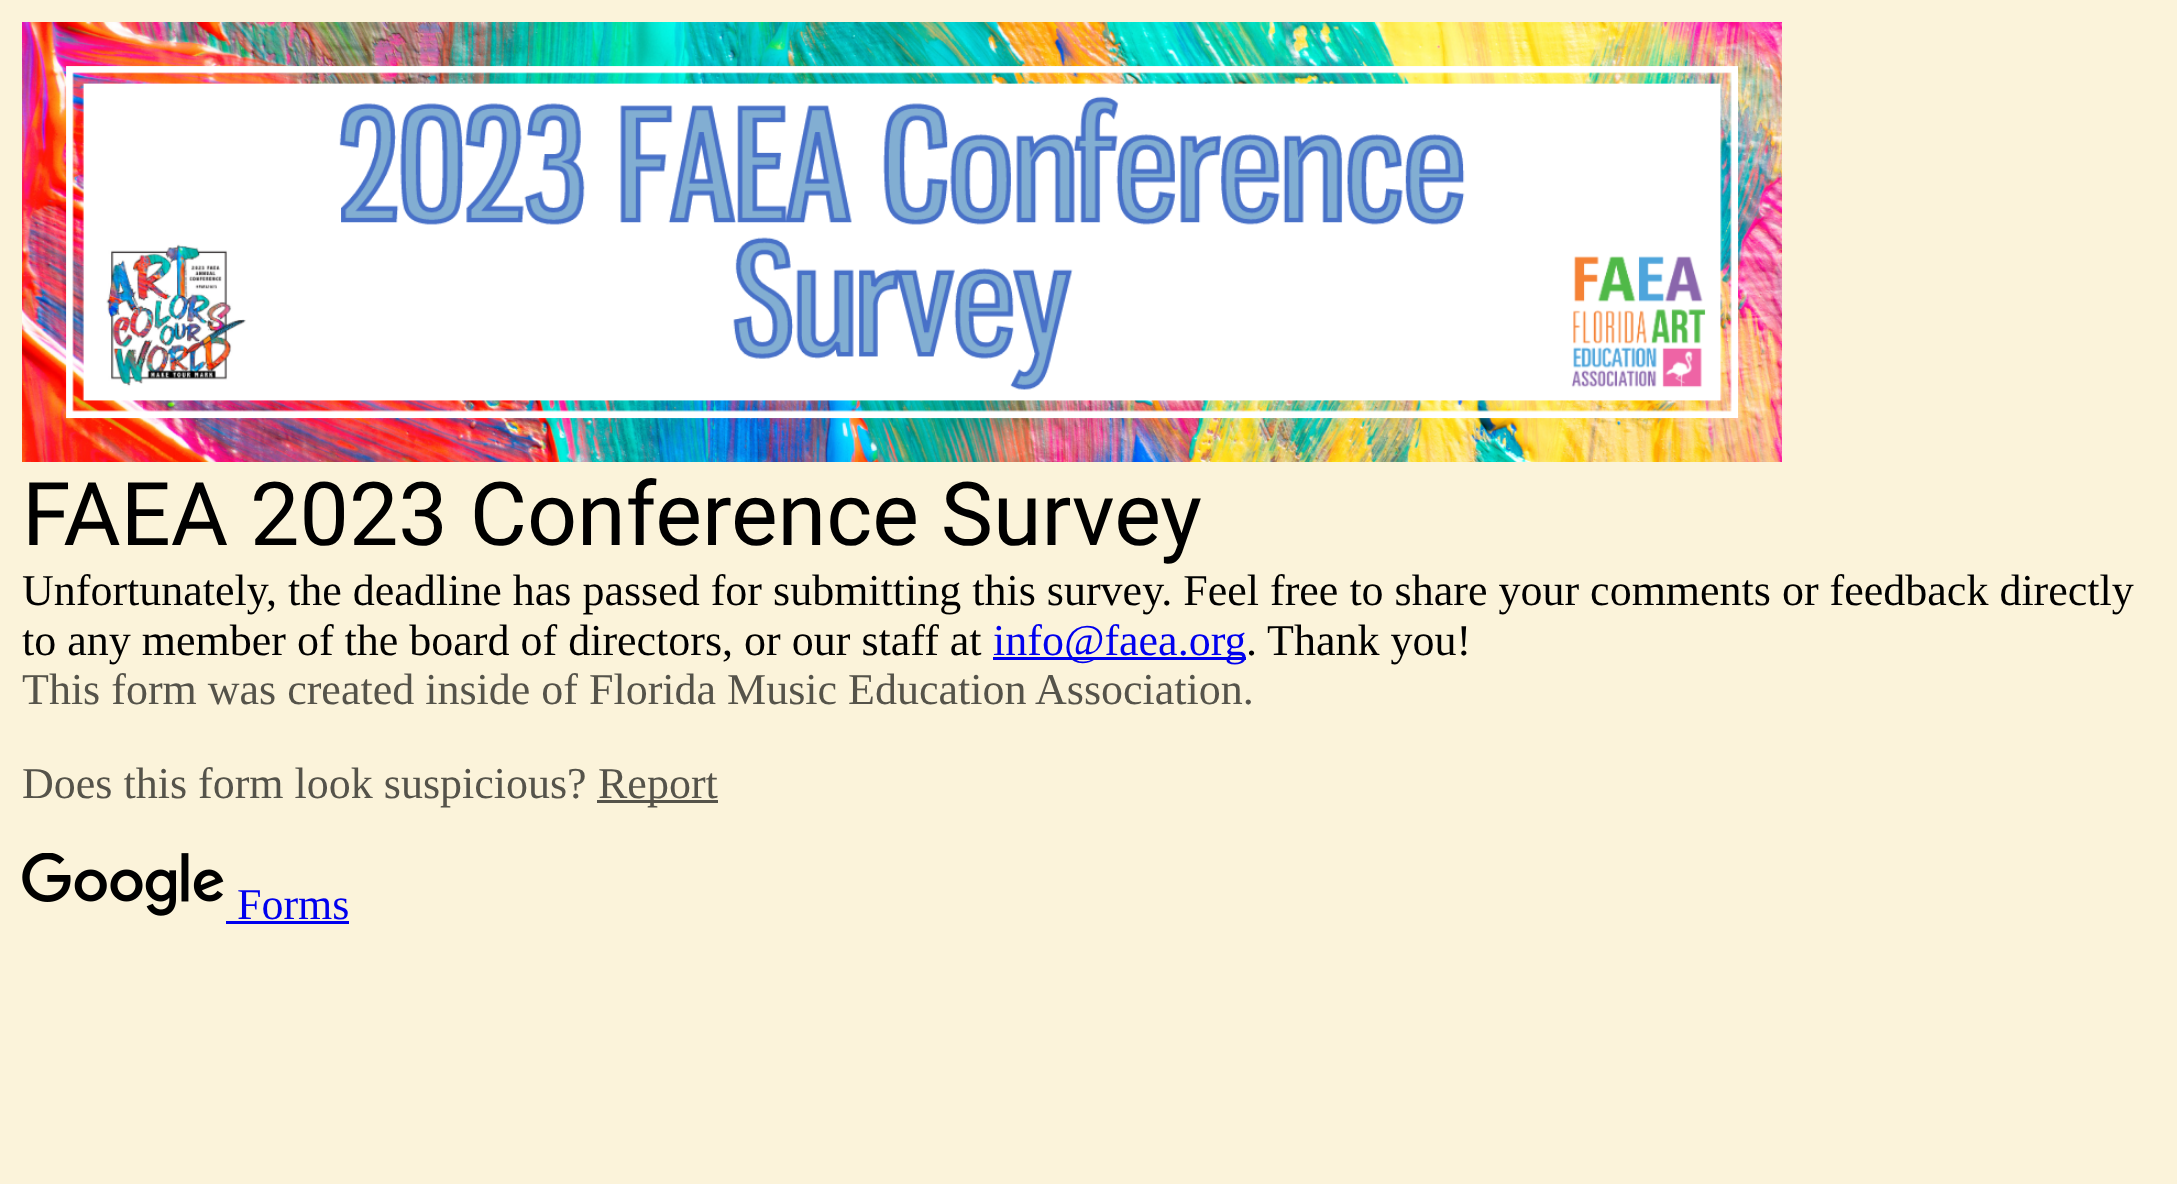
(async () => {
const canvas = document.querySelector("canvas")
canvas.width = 2177
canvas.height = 1184
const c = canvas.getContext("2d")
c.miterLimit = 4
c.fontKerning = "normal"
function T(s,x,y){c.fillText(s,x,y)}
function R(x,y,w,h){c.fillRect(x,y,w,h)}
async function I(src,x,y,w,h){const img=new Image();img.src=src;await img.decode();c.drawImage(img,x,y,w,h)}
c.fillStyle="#fbf3da"
R(0,0,2177,1184)
await I("1.png",22,22,1760,440)
c.font="88px Roboto"
c.fillStyle="#000"
T("FAEA 2023 Conference Survey",22,545)
c.font="44px Liberation Serif"
T("Unfortunately, the deadline has passed for submitting this survey. Feel free to share your comments or feedback directly",22,605)
T("to any member of the board of directors, or our staff at",22,655)
c.fillStyle="#00e"
R(993,657,253,3)
T("info@faea.org",993,655)
c.fillStyle="#000"
T(".",1246,655)
T("Thank you!",1267,655)
c.fillStyle="#55534a"
T("This form was created inside of Florida Music Education Association.",22,704)
T("Does this form look suspicious?",22,798)
R(597,800,121,3)
T("Report",598,798)
await I("2.png",22,853,202,63)
c.fillStyle="#00e"
T("Forms",237,919)
R(226,921,123,3)
})()
